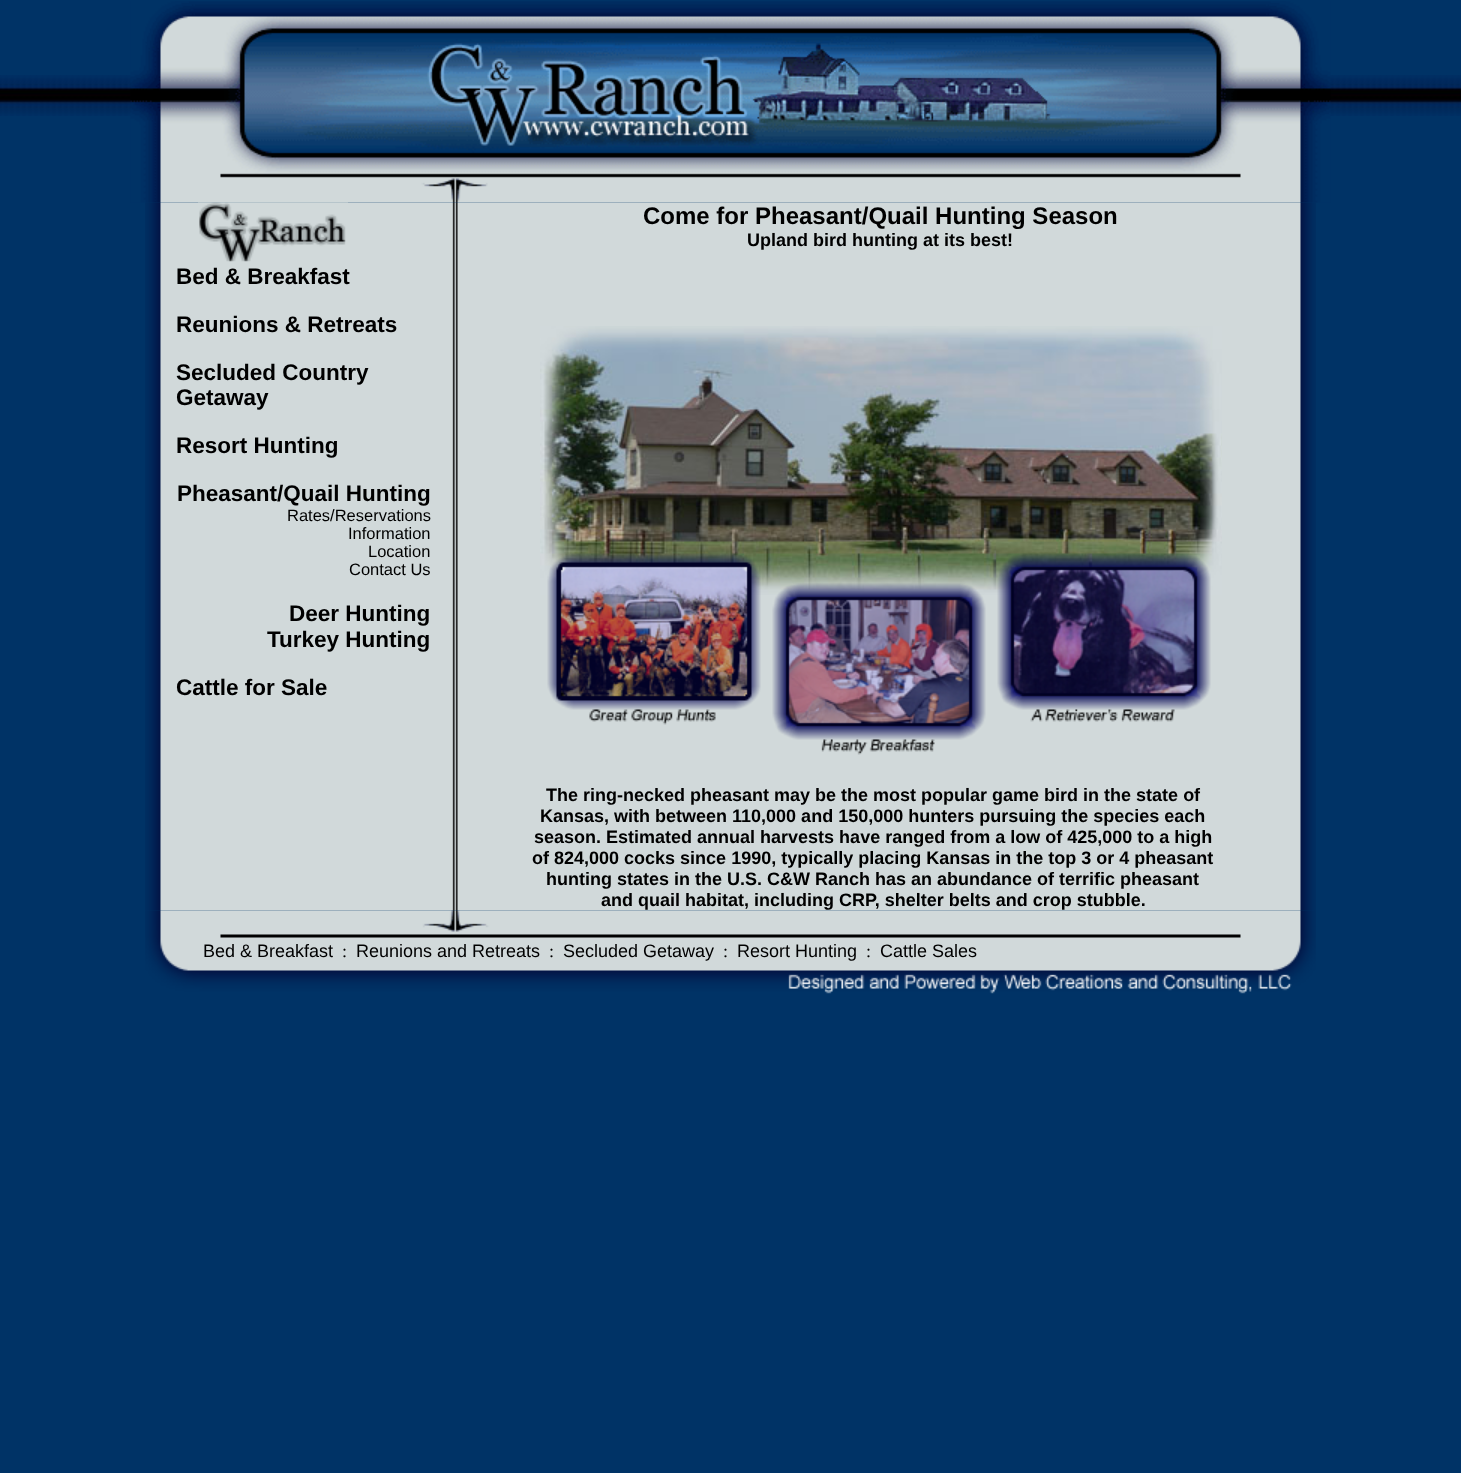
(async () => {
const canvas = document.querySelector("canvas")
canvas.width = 1461
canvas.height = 1473
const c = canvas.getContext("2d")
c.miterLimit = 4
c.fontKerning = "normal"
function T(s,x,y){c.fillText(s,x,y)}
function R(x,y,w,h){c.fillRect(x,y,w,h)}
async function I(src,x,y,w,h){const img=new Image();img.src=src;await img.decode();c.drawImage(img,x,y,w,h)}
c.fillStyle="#036"
R(0,0,1461,1473)
await I("1.png",0,75,1461,41)
await I("2.png",130,1,1201,202)
await I("3.png",145,202,1171,709)
await I("4.png",198,202,150,60)
c.font="bold 22.5px Liberation Sans"
c.fillStyle="#000"
T("Bed & Breakfast",176,284)
T("Reunions & Retreats",176,332)
T("Secluded Country",176,380)
T("Getaway",176,405)
T("Resort Hunting",176,453)
T("Pheasant/Quail Hunting",177,501)
c.font="16.5px Liberation Sans"
T("Rates/Reservations",287,521)
T("Information",348,539)
T("Location",368,557)
T("Contact Us",349,575)
c.font="bold 22.5px Liberation Sans"
T("Deer Hunting",289,621)
T("Turkey Hunting",267,647)
T("Cattle for Sale",176,695)
c.font="bold 24px Liberation Sans"
T("Come for Pheasant/Quail Hunting Season",643,224)
c.font="bold 18px Liberation Sans"
T("Upland bird hunting at its best!",747,246)
await I("5.png",540,326,682,269)
await I("6.png",547,553,214,172)
await I("7.png",772,583,214,172)
await I("8.png",997,553,214,169)
T("The ring-necked pheasant may be the most popular game bird in the state of",546,801)
T("Kansas, with between 110,000 and 150,000 hunters pursuing the species each",540,822)
T("season. Estimated annual harvests have ranged from a low of 425,000 to a high",534,843)
T("of 824,000 cocks since 1990, typically placing Kansas in the top 3 or 4 pheasant",532,864)
T("hunting states in the U.S. C&W Ranch has an abundance of terrific pheasant",546,885)
T("and quail habitat, including CRP, shelter belts and crop stubble.",601,906)
await I("9.png",145,910,1171,84)
c.font="18px Liberation Sans"
T("Bed & Breakfast",203,957)
c.font="18px Liberation Serif"
T(":",342,957)
c.font="18px Liberation Sans"
T("Reunions and Retreats",356,957)
c.font="18px Liberation Serif"
T(":",549,957)
c.font="18px Liberation Sans"
T("Secluded Getaway",563,957)
c.font="18px Liberation Serif"
T(":",723,957)
c.font="18px Liberation Sans"
T("Resort Hunting",737,957)
c.font="18px Liberation Serif"
T(":",866,957)
c.font="18px Liberation Sans"
T("Cattle Sales",880,957)
})()
